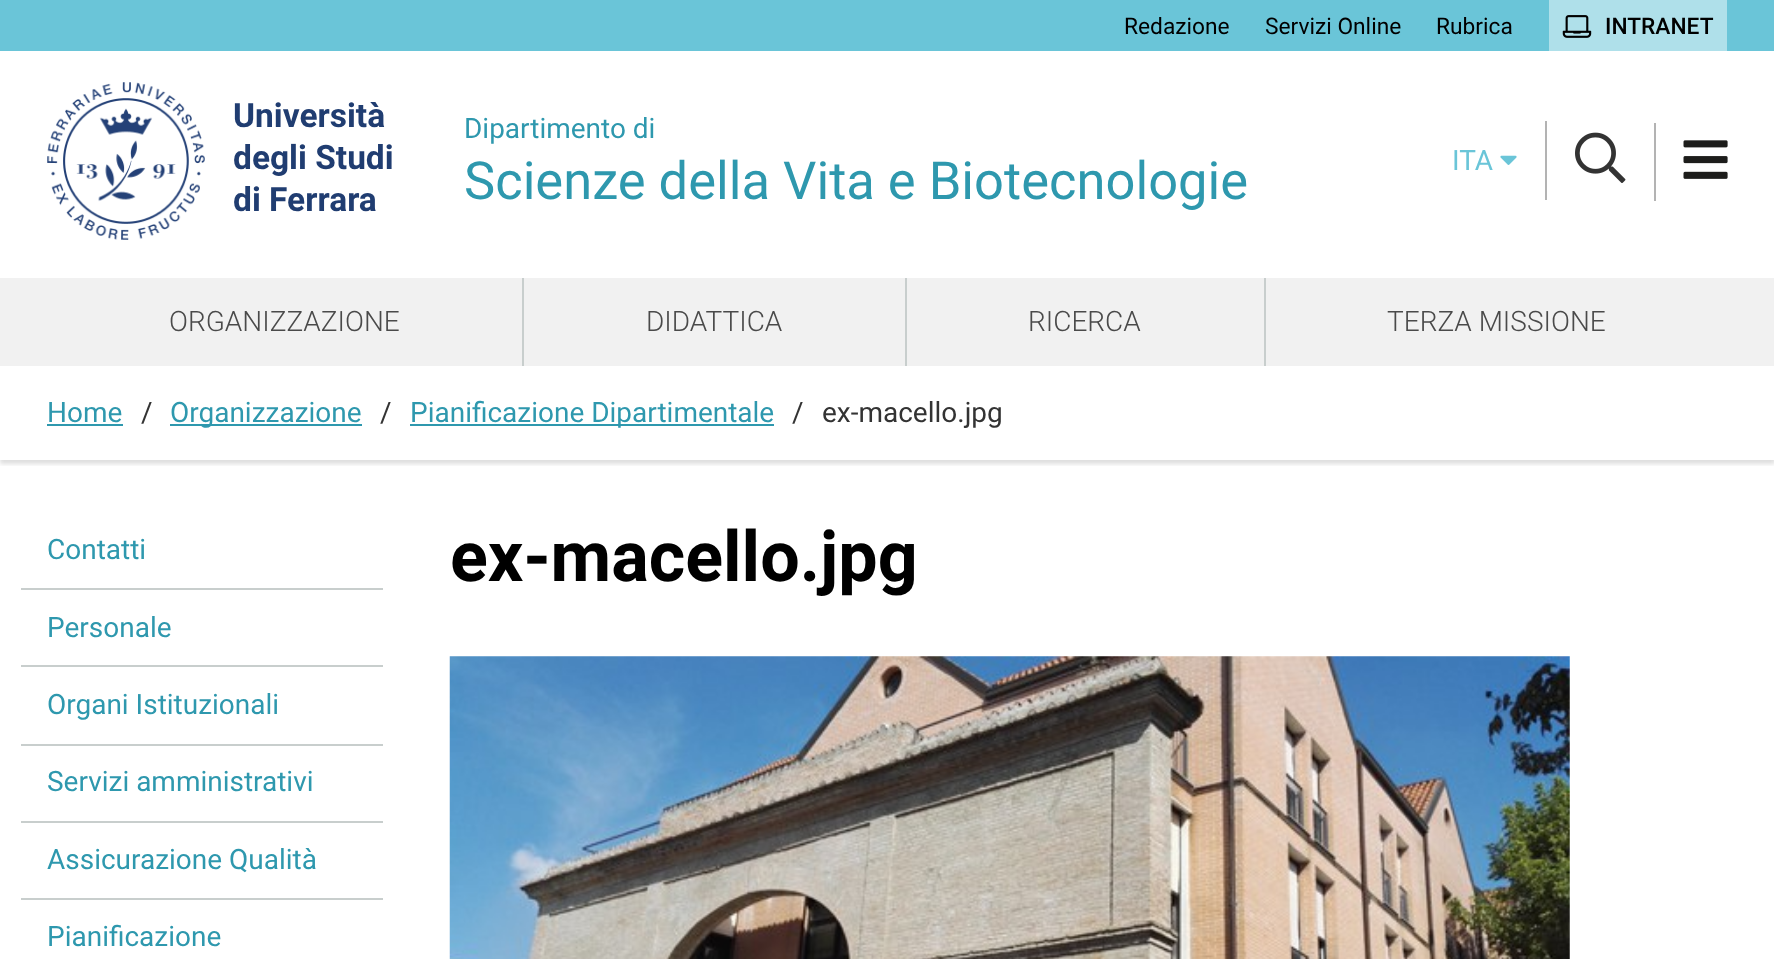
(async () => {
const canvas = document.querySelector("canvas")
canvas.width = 1774
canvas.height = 959
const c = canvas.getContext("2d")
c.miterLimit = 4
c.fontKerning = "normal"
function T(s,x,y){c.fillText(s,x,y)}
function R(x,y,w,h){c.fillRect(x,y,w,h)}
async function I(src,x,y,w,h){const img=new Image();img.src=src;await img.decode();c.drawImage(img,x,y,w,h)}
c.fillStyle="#fff"
R(0,0,1774,959)
c.fillStyle="#6ac5d8"
R(0,0,1774,51)
c.font="22.75px Roboto"
c.fillStyle="#000"
T("Redazione",1124,34)
T("Servizi Online",1265,34)
T("Rubrica",1436,34)
c.fillStyle="#afe0ea"
R(1549,0,178,51)
await I("1.png",1562,15,30,23)
c.font="500 22.75px Roboto"
c.fillStyle="#000"
T("INTRANET",1605,34)
await I("2.png",47,82,158,158)
c.font="bold 33.5px Roboto"
c.fillStyle="#203d71"
T("Università",233,127)
T("degli Studi",233,169)
T("di Ferrara",233,211)
c.font="28px Roboto"
c.fillStyle="#2e98ae"
T("Dipartimento di",464,138)
c.font="52.5px Roboto"
T("Scienze della Vita e Biotecnologie",464,199)
c.font="28px Roboto"
c.fillStyle="#6ac5d8"
T("ITA",1452,170)
await I("3.png",1500,155,17,10)
c.fillStyle="#b3b3b3"
R(1545,121,2,79)
await I("4.png",1575,132,51,51)
R(1654,123,2,78)
await I("5.png",1683,140,45,39)
c.save()
c.beginPath()
c.rect(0,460,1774,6)
c.clip()
c.fillStyle="#00000021"
c.filter="blur(2px)"
c.beginPath()
c.rect(0,369,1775,95)
c.fill()
c.filter="none"
c.restore()
c.fillStyle="#f1f1f1"
R(0,278,1774,88)
c.fillStyle="#c8cecd"
R(522,278,2,88)
c.font="300 28px Roboto"
c.fillStyle="#4a4a4a"
T("ORGANIZZAZIONE",169,331)
c.fillStyle="#c8cecd"
R(905,278,2,88)
c.fillStyle="#4a4a4a"
T("DIDATTICA",646,331)
c.fillStyle="#c8cecd"
R(1264,278,2,88)
c.fillStyle="#4a4a4a"
T("RICERCA",1028,331)
T("TERZA MISSIONE",1387,331)
c.font="28px Roboto"
c.fillStyle="#2e98ae"
T("Home",47,422)
R(47,424,76,2)
c.fillStyle="#333"
T("/",141,422)
c.fillStyle="#2e98ae"
R(170,424,192,2)
T("Organizzazione",170,422)
c.fillStyle="#333"
T("/",380,422)
c.fillStyle="#2e98ae"
R(410,424,364,2)
T("Pianificazione Dipartimentale",410,422)
c.fillStyle="#333"
T("/",792,422)
T("ex-macello.jpg",822,422)
c.fillStyle="#c8cecd"
R(21,588,362,2)
c.fillStyle="#2e98ae"
T("Contatti",47,559)
c.fillStyle="#c8cecd"
R(21,665,362,2)
c.fillStyle="#2e98ae"
T("Personale",47,637)
c.fillStyle="#c8cecd"
R(21,744,362,2)
c.fillStyle="#2e98ae"
T("Organi Istituzionali",47,714)
c.fillStyle="#c8cecd"
R(21,821,362,2)
c.fillStyle="#2e98ae"
T("Servizi amministrativi",47,791)
c.fillStyle="#c8cecd"
R(21,898,362,2)
c.fillStyle="#2e98ae"
T("Assicurazione Qualità",47,869)
T("Pianificazione",47,946)
c.font="bold 70px Roboto"
c.fillStyle="#000"
T("ex-macello.jpg",450,581)
await I("6.png",449,656,1121,303)
})()
